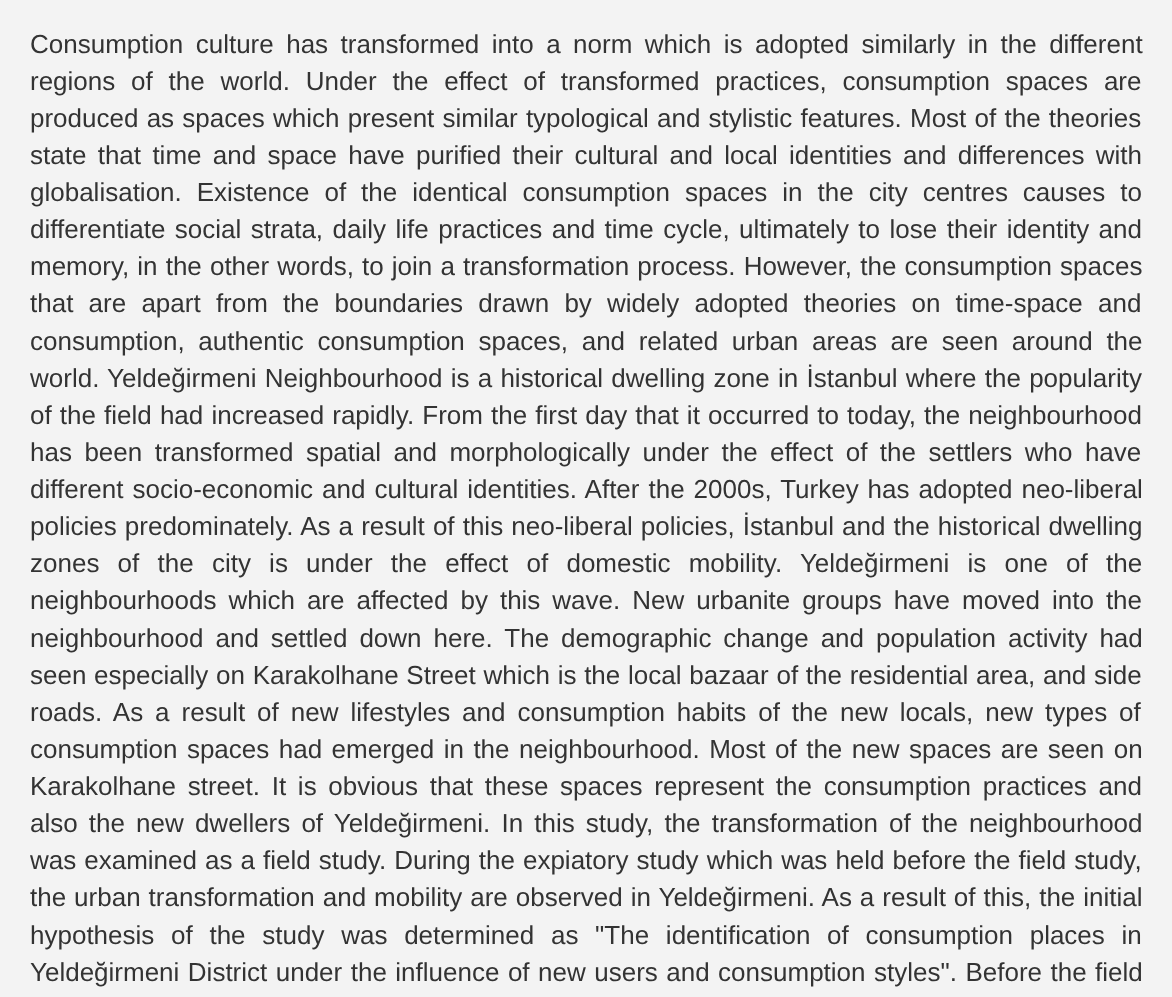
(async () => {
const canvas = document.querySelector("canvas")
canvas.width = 1172
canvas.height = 997
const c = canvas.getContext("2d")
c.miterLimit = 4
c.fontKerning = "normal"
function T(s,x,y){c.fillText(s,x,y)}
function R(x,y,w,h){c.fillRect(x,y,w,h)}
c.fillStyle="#f3f3f3"
R(0,0,1172,997)
c.wordSpacing="5.25px"
c.font="26px Liberation Sans"
c.fillStyle="#333"
T("Consumption culture has transformed into a norm which is adopted similarly in the different",30,53)
c.wordSpacing="8.6px"
T("regions of the world. Under the effect of transformed practices, consumption spaces are",30,90)
c.wordSpacing="1px"
T("produced as spaces which present similar typological and stylistic features. Most of the theories",30,127)
c.wordSpacing="4.1px"
T("state that time and space have purified their cultural and local identities and differences with",30,164)
c.wordSpacing="7.75px"
T("globalisation. Existence of the identical consumption spaces in the city centres causes to",30,201)
c.wordSpacing="2.25px"
T("differentiate social strata, daily life practices and time cycle, ultimately to lose their identity and",30,238)
c.wordSpacing="0.9px"
T("memory, in the other words, to join a transformation process. However, the consumption spaces",30,275)
c.wordSpacing="8px"
T("that are apart from the boundaries drawn by widely adopted theories on time-space and",30,312)
c.wordSpacing="6.4px"
T("consumption, authentic consumption spaces, and related urban areas are seen around the",30,350)
c.wordSpacing="1px"
T("world. Yeldeğirmeni Neighbourhood is a historical dwelling zone in İstanbul where the popularity",30,387)
c.wordSpacing="0.9px"
T("of the field had increased rapidly. From the first day that it occurred to today, the neighbourhood",30,424)
c.wordSpacing="5.25px"
T("has been transformed spatial and morphologically under the effect of the settlers who have",30,461)
c.wordSpacing="1.75px"
T("different socio-economic and cultural identities. After the 2000s, Turkey has adopted neo-liberal",30,498)
c.wordSpacing="0.9px"
T("policies predominately. As a result of this neo-liberal policies, İstanbul and the historical dwelling",30,535)
c.wordSpacing="11px"
T("zones of the city is under the effect of domestic mobility. Yeldeğirmeni is one of the",30,572)
c.wordSpacing="4.75px"
T("neighbourhoods which are affected by this wave. New urbanite groups have moved into the",30,609)
T("neighbourhood and settled down here. The demographic change and population activity had",30,647)
c.wordSpacing="0.5px"
T("seen especially on Karakolhane Street which is the local bazaar of the residential area, and side",30,684)
c.wordSpacing="4.75px"
T("roads. As a result of new lifestyles and consumption habits of the new locals, new types of",30,721)
c.wordSpacing="2.25px"
T("consumption spaces had emerged in the neighbourhood. Most of the new spaces are seen on",30,758)
c.wordSpacing="4.5px"
T("Karakolhane street. It is obvious that these spaces represent the consumption practices and",30,795)
c.wordSpacing="3.9px"
T("also the new dwellers of Yeldeğirmeni. In this study, the transformation of the neighbourhood",30,832)
c.wordSpacing="0.8px"
T("was examined as a field study. During the expiatory study which was held before the field study,",30,869)
c.wordSpacing="0.75px"
T("the urban transformation and mobility are observed in Yeldeğirmeni. As a result of this, the initial",30,906)
c.wordSpacing="9.5px"
T("hypothesis of the study was determined as \"The identification of consumption places in",30,944)
c.wordSpacing="1.25px"
T("Yeldeğirmeni District under the influence of new users and consumption styles\". Before the field",30,981)
})()
